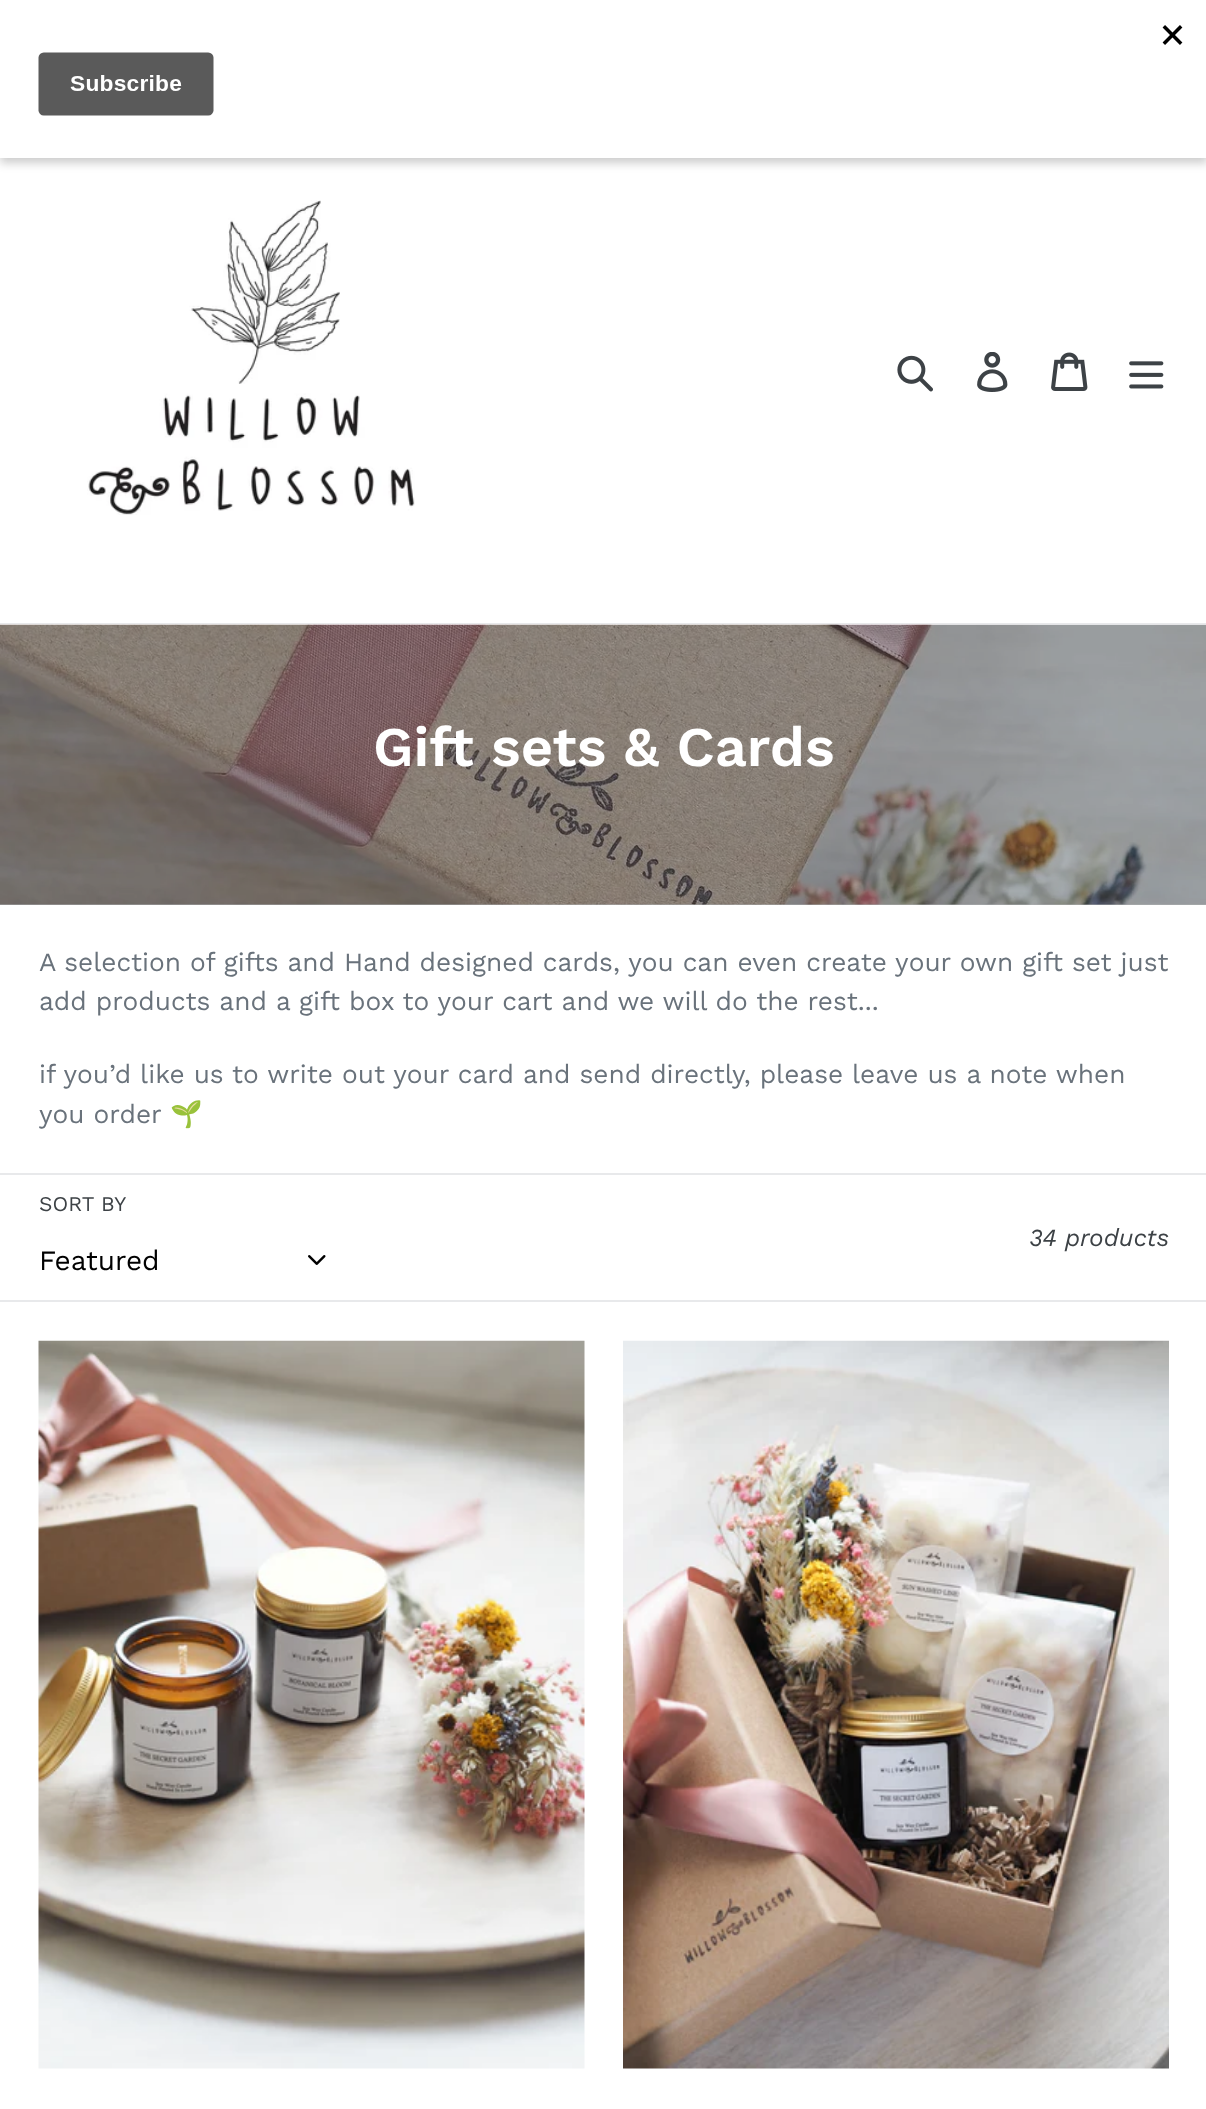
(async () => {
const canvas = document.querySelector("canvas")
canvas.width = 1206
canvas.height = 2109
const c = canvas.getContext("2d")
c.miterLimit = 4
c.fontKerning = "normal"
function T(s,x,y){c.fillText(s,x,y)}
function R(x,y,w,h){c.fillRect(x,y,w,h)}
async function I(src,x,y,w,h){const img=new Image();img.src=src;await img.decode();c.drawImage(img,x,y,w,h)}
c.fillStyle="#fff"
R(0,0,1206,2109)
c.fillStyle="#b1b3b5"
R(0,904,1206,1)
c.fillStyle="#00000033"
c.filter="blur(5px)"
c.beginPath()
c.rect(0,5,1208,158)
c.fill()
c.filter="none"
c.fillStyle="#fff"
R(0,0,1206,158)
await I("1.png",38,25,1145,91)
c.fillStyle="#e8e9eb"
R(0,623,1206,2)
await I("2.png",87,200,328,315)
await I("3.png",897,355,36,37)
await I("4.png",977,352,31,40)
await I("5.png",1051,352,37,39)
await I("6.png",1129,361,35,28)
await I("7.png",0,624,1206,281)
c.font="600 56px Work Sans"
c.fillStyle="#fff"
T("Gift sets & Cards",373,766)
c.font="26.25px Work Sans"
c.fillStyle="#69727b"
T("A selection of gifts and Hand designed cards, you can even create your own gift set just",39,971)
T("add products and a gift box to your cart and we will do the rest...",39,1010)
T("if you’d like us to write out your card and send directly, please leave us a note when",39,1083)
T("you order",39,1123)
c.font="26.25px Noto Color Emoji"
T("🌱",170,1123)
c.fillStyle="#e8e9eb"
R(0,1173,1206,2)
R(0,1300,1206,2)
c.font="21px Work Sans"
c.fillStyle="#3d4246"
T("SORT BY",39,1211)
c.font="28px Work Sans"
c.fillStyle="#000"
T("Featured",39,1270)
await I("8.png",308,1255,18,10)
c.font="italic 24.5px Work Sans"
c.fillStyle="#3d4246"
T("34 products",1029,1246)
await I("9.png",38,1340,547,729)
await I("10.png",623,1340,546,729)
})()
